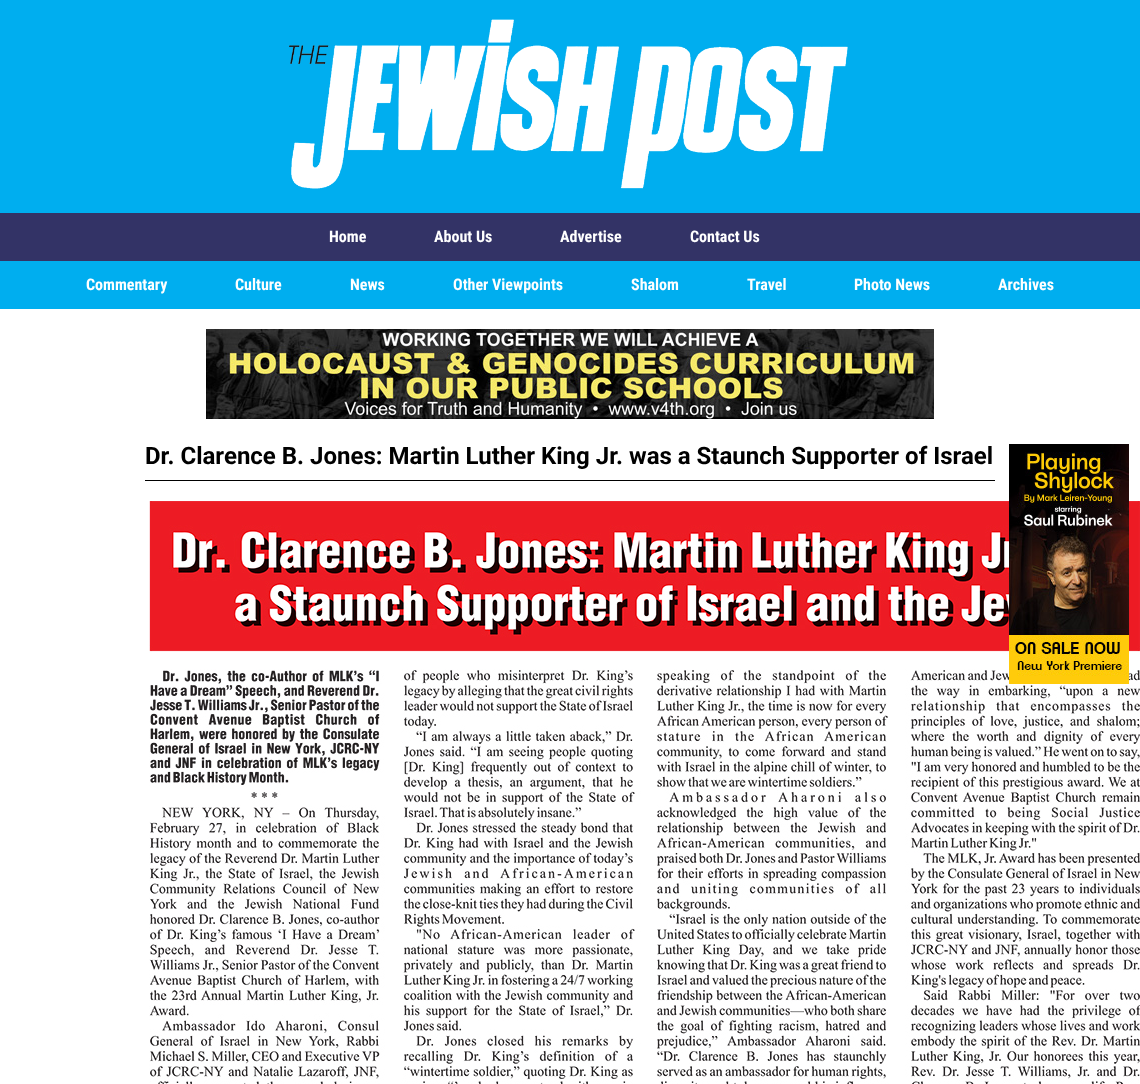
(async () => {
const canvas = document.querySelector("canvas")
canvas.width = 1140
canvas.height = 1084
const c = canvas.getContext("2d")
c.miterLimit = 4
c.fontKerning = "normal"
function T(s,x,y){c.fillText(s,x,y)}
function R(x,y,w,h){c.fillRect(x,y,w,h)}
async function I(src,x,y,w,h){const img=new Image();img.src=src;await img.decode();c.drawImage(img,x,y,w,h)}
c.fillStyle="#fff"
R(0,0,1140,1084)
c.fillStyle="#00aeef"
R(0,0,1140,213)
await I("1.png",289,19,559,170)
c.fillStyle="#336"
R(0,213,1140,48)
c.font="bold 16px Roboto Condensed"
c.fillStyle="#fff"
T("Home",329,242)
T("About Us",434,242)
T("Advertise",560,242)
T("Contact Us",690,242)
c.fillStyle="#00aeef"
R(0,261,1140,48)
c.fillStyle="#fff"
T("Commentary",86,290)
T("Culture",235,290)
T("News",350,290)
T("Other Viewpoints",453,290)
T("Shalom",631,290)
T("Travel",747,290)
T("Photo News",854,290)
T("Archives",998,290)
await I("2.png",206,329,728,90)
c.fillStyle="#000"
R(145,480,850,1)
c.font="bold 24px Roboto"
T("Dr. Clarence B. Jones: Martin Luther King Jr. was a Staunch Supporter of Israel",145,464)
await I("3.png",149,501,991,583)
await I("4.png",1009,444,120,240)
})()
